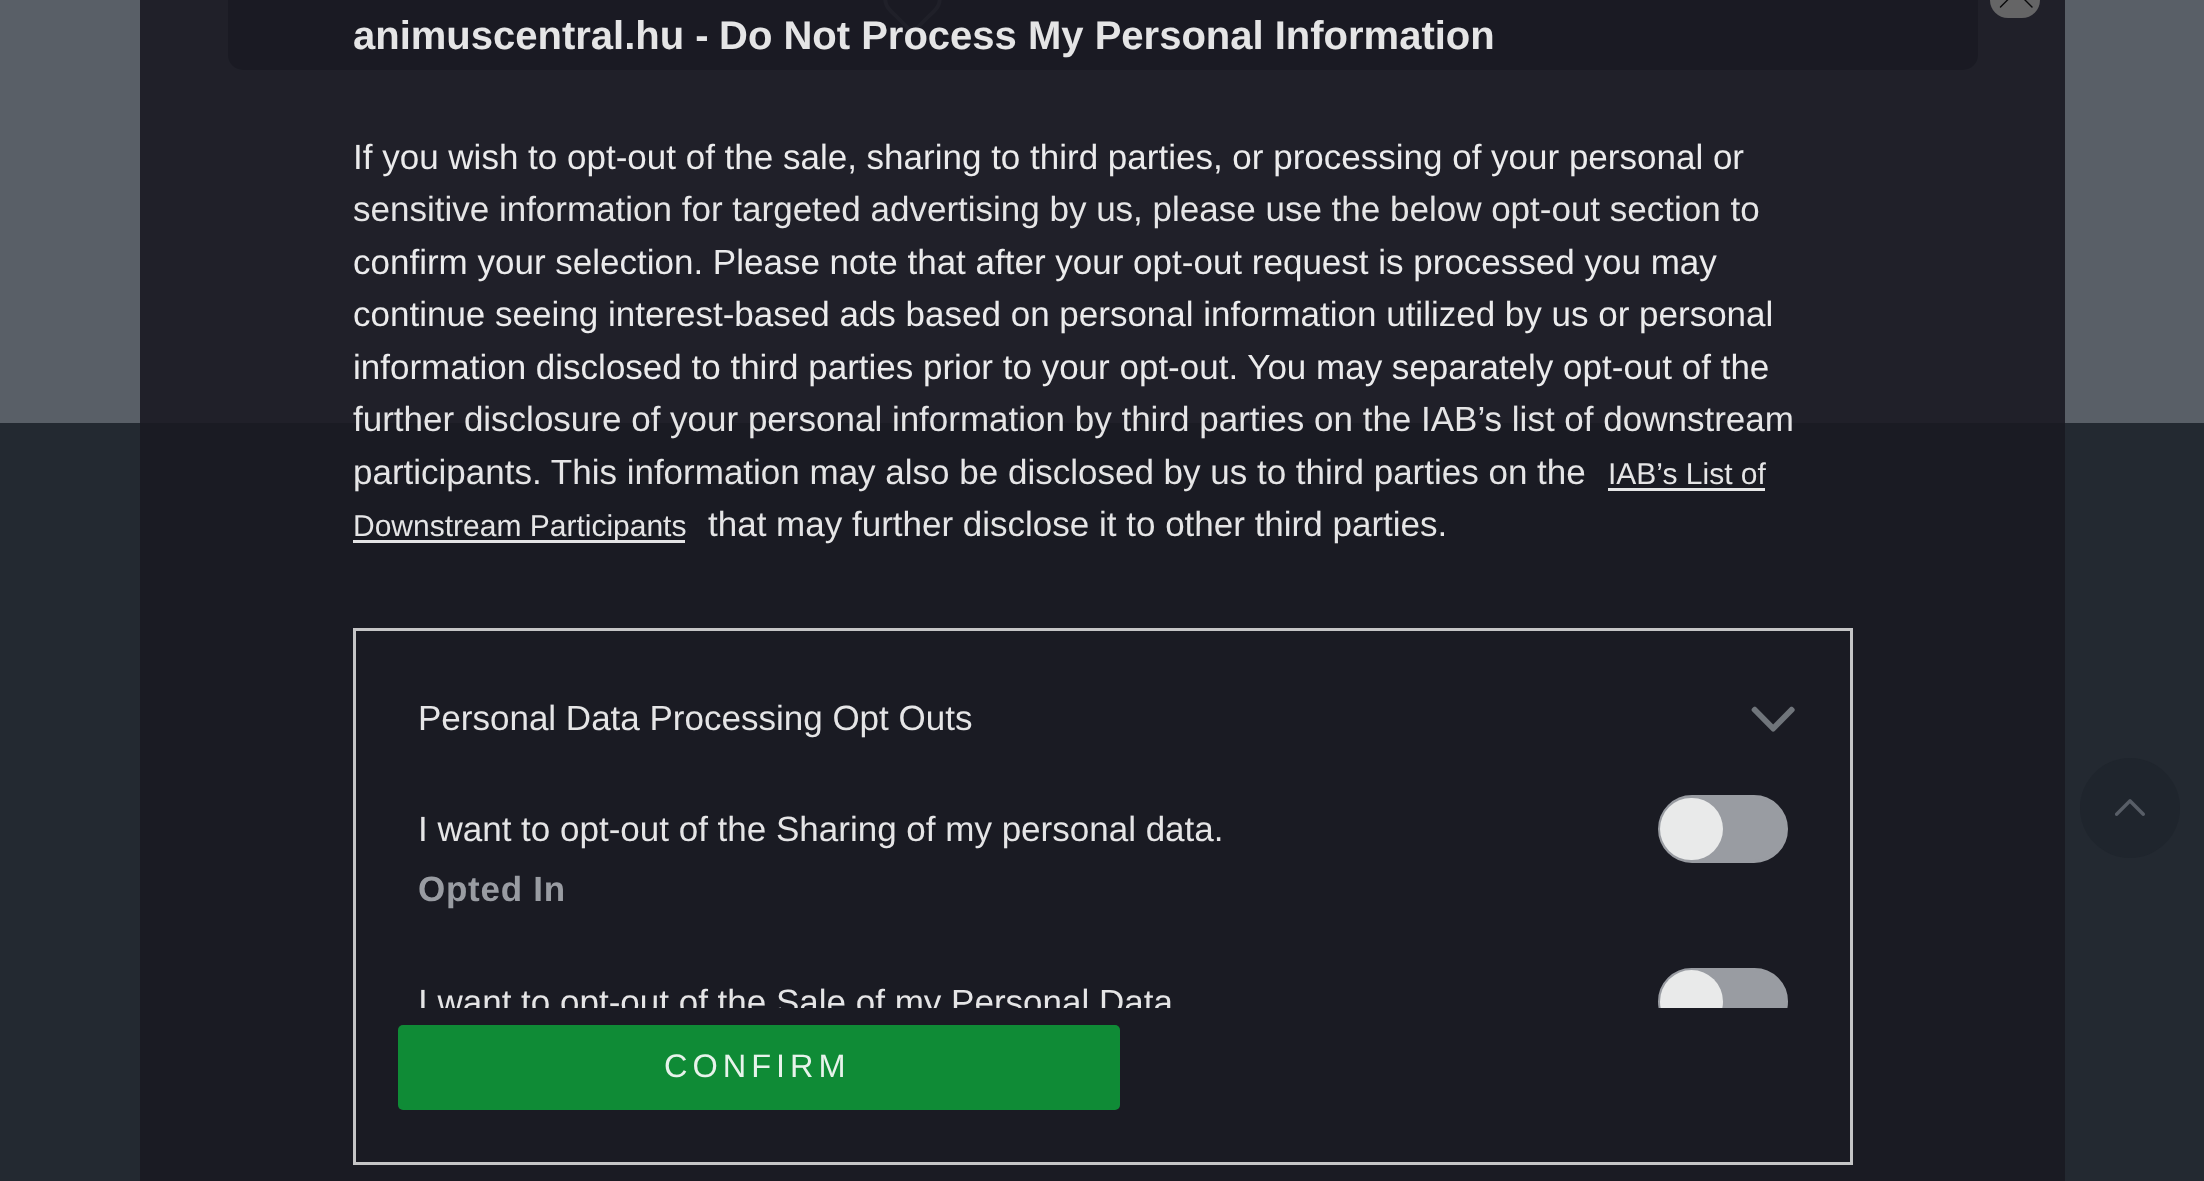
(async () => {
const canvas = document.querySelector("canvas")
canvas.width = 2204
canvas.height = 1181
const c = canvas.getContext("2d")
c.miterLimit = 4
c.fontKerning = "normal"
function T(s,x,y){c.fillText(s,x,y)}
function R(x,y,w,h){c.fillRect(x,y,w,h)}
function Q(x,y,w,h,r){c.beginPath();c.roundRect(x,y,w,h,r);c.fill()}
async function I(src,x,y,w,h){const img=new Image();img.src=src;await img.decode();c.drawImage(img,x,y,w,h)}
let path
c.fillStyle="#595f67"
R(0,0,2204,1181)
c.fillStyle="#1f252d"
Q(228,-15,1750,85,15)
path = new Path2D("M912.5-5c-3-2.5-5.5-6-9.5-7.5c-10.5-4-21 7-16.5 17.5c2 5 7 8.5 10.5 12l15.5 15.5l15.5-15.5c3.5-3.5 8.5-7 10.5-12c4.5-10.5-6-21.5-16.5-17.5c-4 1.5-6.5 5-9.5 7.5z")
c.strokeStyle="#595f67"
c.lineWidth=3.8
c.lineCap="round"
c.lineJoin="round"
c.stroke(path)
c.fillStyle="#232931"
R(0,423,2204,758)
c.fillStyle="#1f252d"
c.beginPath()
c.arc(2130,808,50,0,7)
c.fill()
await I("1.png",2115,799,30,17)
c.fillStyle="#191922e6"
R(140,0,1925,1181)
c.fillStyle="#656566"
c.beginPath()
c.roundRect(1990,0,50,18,[0,0,25,25])
c.fill()
path = new Path2D("M2000.5-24.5l31.5 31.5m0-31.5l-31.5 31.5")
c.strokeStyle="#09090a"
c.lineWidth=1.4
c.stroke(path)
c.font="bold 40px Liberation Sans"
c.fillStyle="#e5e5e6"
T("animuscentral.hu -",353,49)
T("Do Not Process My Personal Information",719,49)
c.font="35px Liberation Sans"
c.fillStyle="#ebebec"
T("If you wish to opt-out of the sale, sharing to third parties, or processing of your personal or",353,169)
c.fillStyle="#e5e5e6"
T("sensitive information for targeted advertising by us, please use the below opt-out section to",353,221)
c.fillStyle="#ebebec"
T("confirm your selection. Please note that after your opt-out request is processed you may",353,274)
T("continue seeing interest-based ads based on personal information utilized by us or personal",353,326)
T("information disclosed to third parties prior to your opt-out. You may separately opt-out of the",353,379)
c.fillStyle="#e5e5e6"
T("further disclosure of your personal information by third parties on the IAB’s list of downstream",353,431)
T("participants. This information may also be disclosed by us to third parties on the",353,484)
c.font="30px Liberation Sans"
T("IAB’s List of",1608,484)
c.fillStyle="#e5e6e7"
R(1608,488,157,3)
c.fillStyle="#fbfbfbe6"
R(353,540,332,3)
c.fillStyle="#e5e5e6"
T("Downstream Participants",353,536)
c.font="35px Liberation Sans"
T("that may further disclose it to other third parties.",708,536)
c.strokeStyle="#d8d8d8e6"
c.lineWidth=3
c.lineJoin="miter"
c.strokeRect(354.5,629.5,1497,534)
T("Personal Data Processing Opt Outs",418,730)
await I("2.png",1751,706,44,26)
T("I want to opt-out of the Sharing of my personal data.",418,841)
c.fillStyle="#999ca2"
c.beginPath()
c.roundRect(1659.5,796.5,127,65,32.5)
c.fill()
c.strokeStyle="#999ca2"
c.stroke()
c.fillStyle="#e9eaea"
Q(1660,798,63,62,31)
c.letterSpacing="0.75px"
c.font="bold 35px Liberation Sans"
c.fillStyle="#999ca2"
T("Opted In",418,901)
c.save()
c.beginPath()
c.rect(380,655,1445,353)
c.clip()
c.letterSpacing="0px"
c.font="35px Liberation Sans"
c.fillStyle="#e5e5e6"
T("I want to opt-out of the Sale of my Personal Data",418,1014)
c.fillStyle="#999ca2"
c.beginPath()
c.roundRect(1659.5,969.5,127,64,32)
c.fill()
c.stroke()
c.fillStyle="#e9eaea"
c.beginPath()
c.arc(1691.5,1001.5,31.5,0,7)
c.fill()
c.restore()
c.fillStyle="#0e9839e6"
Q(398,1025,722,85,5)
c.letterSpacing="5px"
c.font="32.5px Liberation Sans"
c.fillStyle="#e7f3eb"
T("CONFIRM",664,1077)
})()
